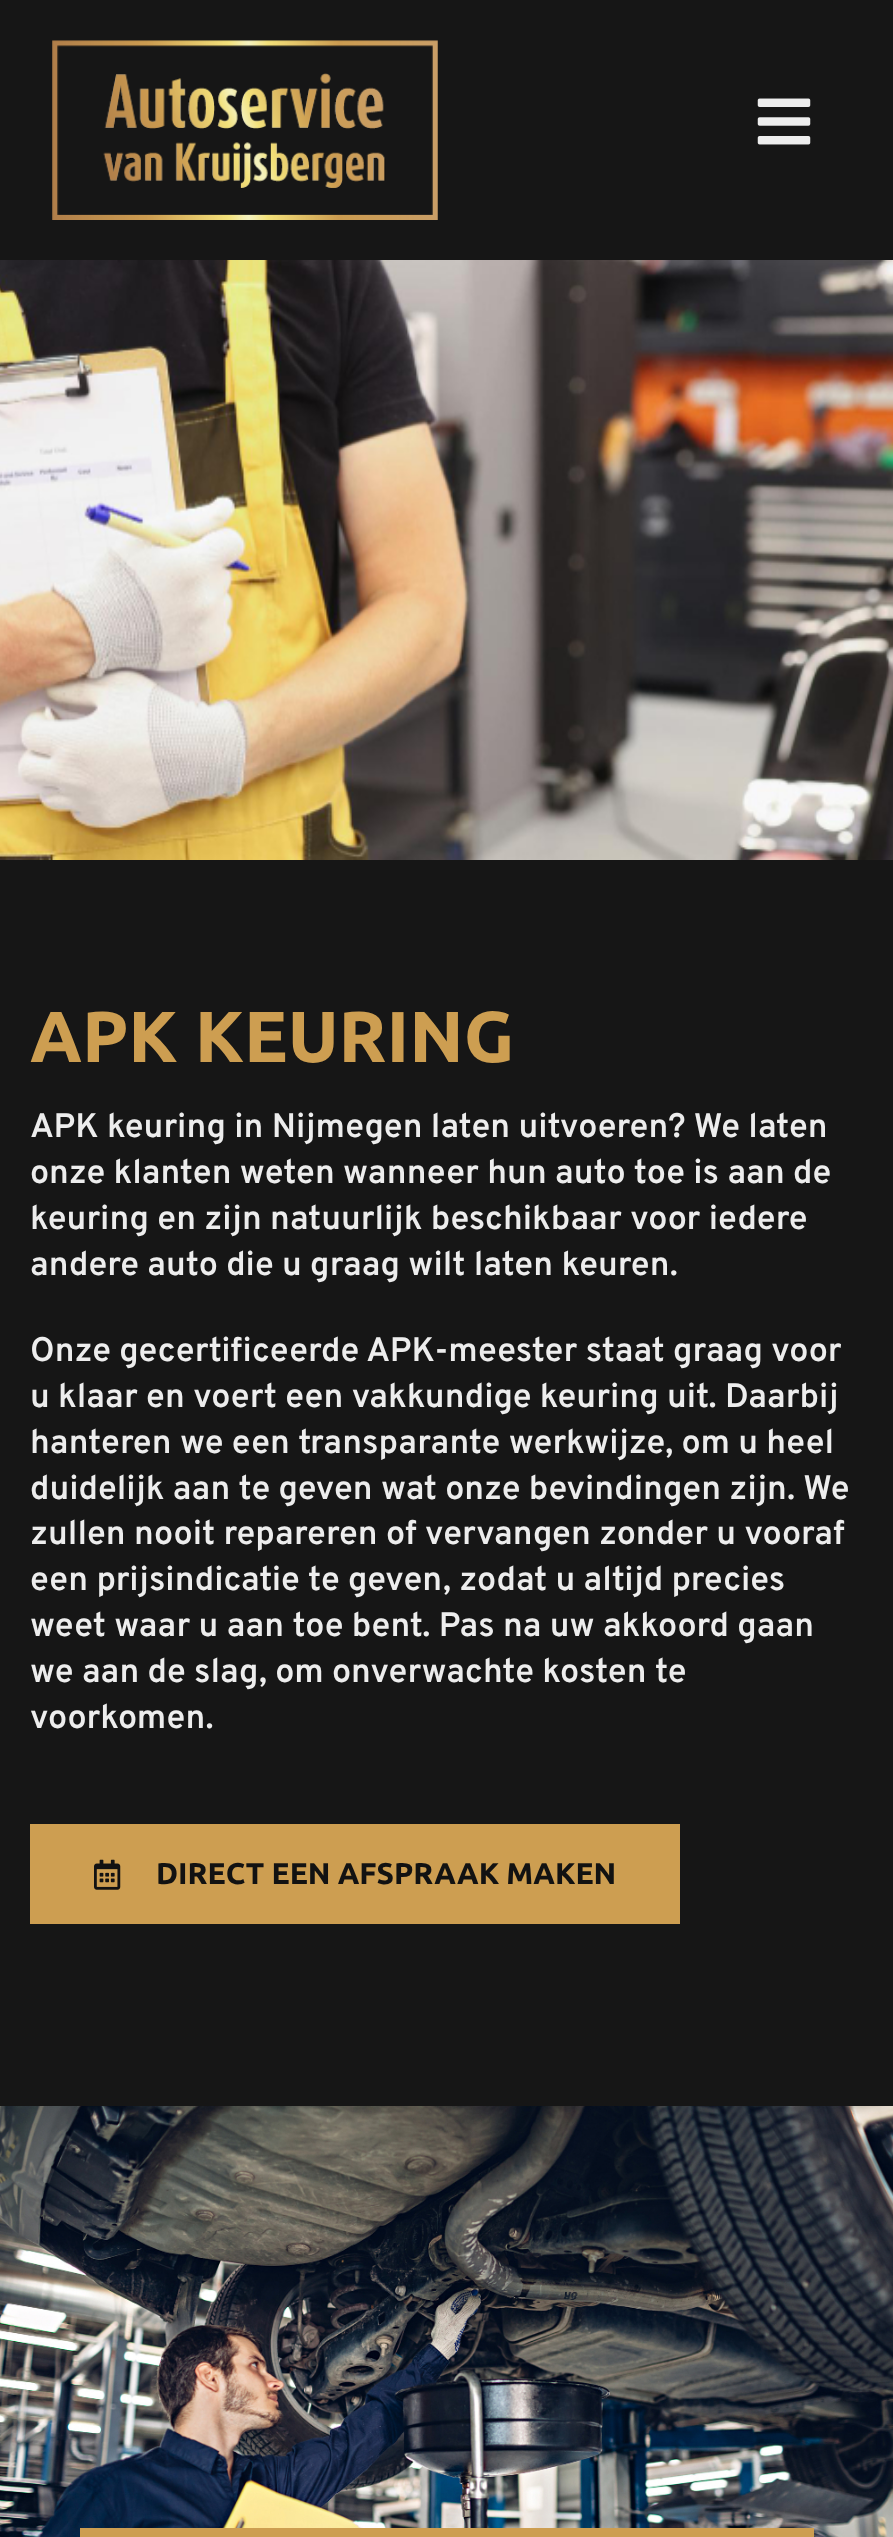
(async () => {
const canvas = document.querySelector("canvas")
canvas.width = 893
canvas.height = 2537
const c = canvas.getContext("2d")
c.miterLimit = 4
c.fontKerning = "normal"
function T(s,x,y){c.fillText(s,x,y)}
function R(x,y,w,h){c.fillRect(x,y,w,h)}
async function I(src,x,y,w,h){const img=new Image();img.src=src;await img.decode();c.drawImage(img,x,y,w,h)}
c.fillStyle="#161616"
R(0,0,893,2537)
await I("1.png",52,40,386,180)
await I("2.png",757,98,54,47)
await I("3.png",0,260,893,600)
c.font="bold 72px Ubuntu"
c.fillStyle="#cd9e51"
T("APK KEURING",30,1062)
c.font="600 34px Overpass"
c.fillStyle="#ededed"
T("APK keuring in Nijmegen laten uitvoeren? We laten",30,1137)
T("onze klanten weten wanneer hun auto toe is aan de",30,1183)
T("keuring en zijn natuurlijk beschikbaar voor iedere",30,1229)
T("andere auto die u graag wilt laten keuren.",30,1275)
T("Onze gecertificeerde APK-meester staat graag voor",30,1361)
T("u klaar en voert een vakkundige keuring uit. Daarbij",30,1407)
T("hanteren we een transparante werkwijze, om u heel",30,1453)
T("duidelijk aan te geven wat onze bevindingen zijn. We",30,1499)
T("zullen nooit repareren of vervangen zonder u vooraf",30,1544)
T("een prijsindicatie te geven, zodat u altijd precies",30,1590)
T("weet waar u aan toe bent. Pas na uw akkoord gaan",30,1636)
T("we aan de slag, om onverwachte kosten te",30,1682)
T("voorkomen.",30,1728)
c.fillStyle="#cd9e51"
R(30,1824,650,100)
await I("4.png",94,1859,27,31)
c.font="bold 30px Ubuntu"
c.fillStyle="#121212"
T("DIRECT EEN AFSPRAAK MAKEN",156,1884)
await I("5.png",0,2106,893,431)
c.fillStyle="#cd9e51"
R(80,2528,734,9)
})()
